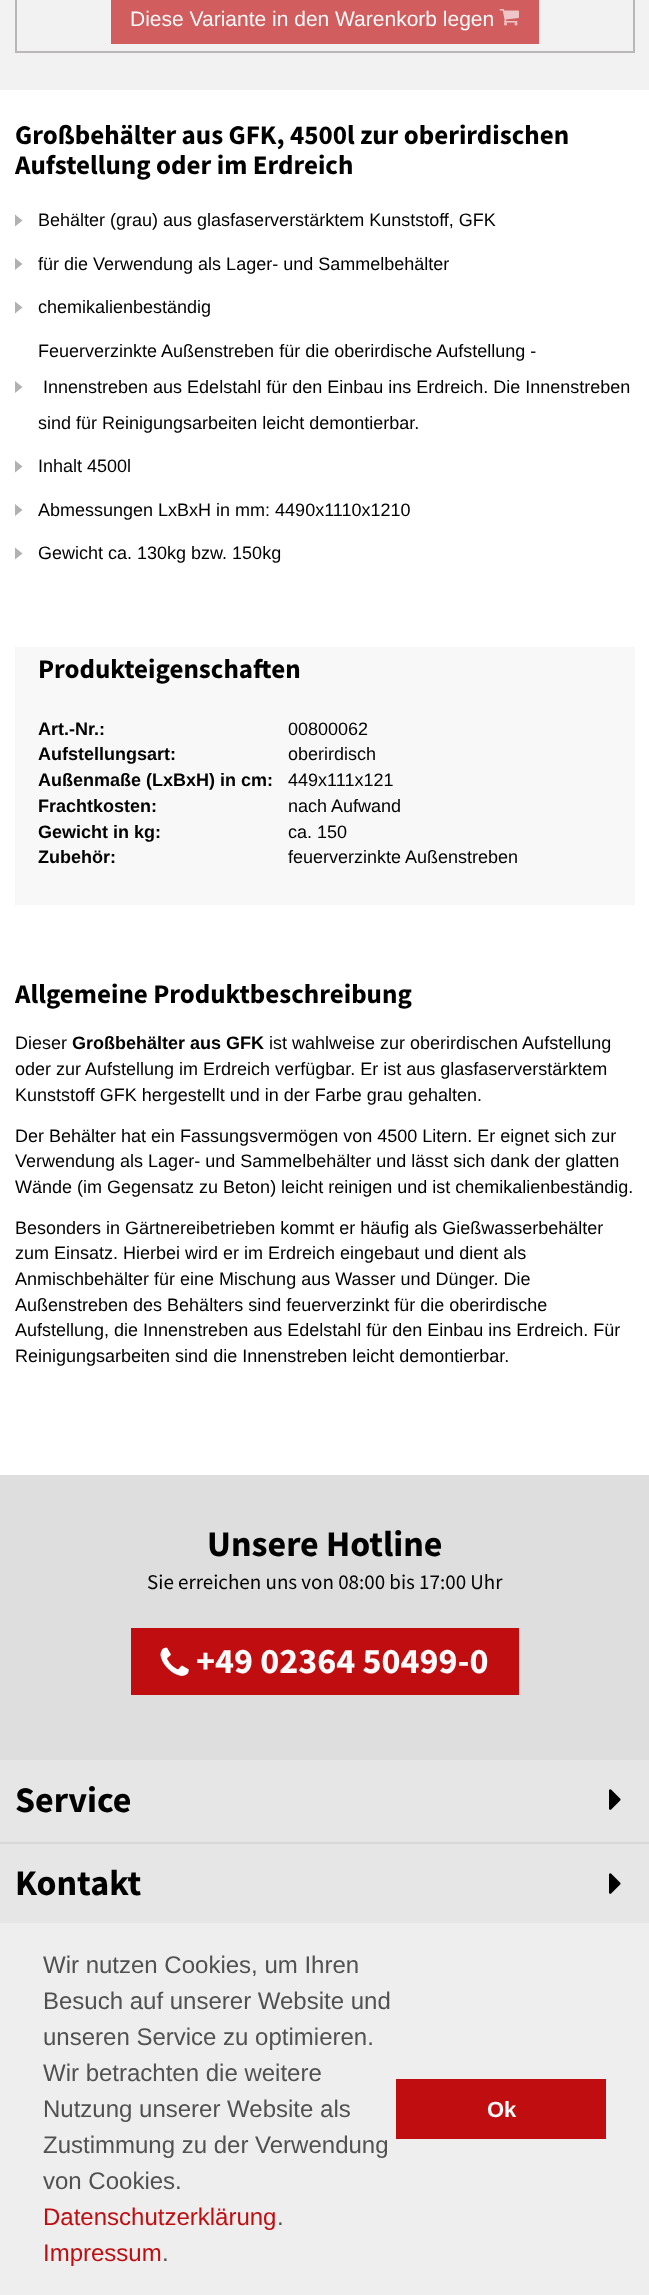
(async () => {
const canvas = document.querySelector("canvas")
canvas.width = 649
canvas.height = 2295
const c = canvas.getContext("2d")
c.miterLimit = 4
c.fontKerning = "normal"
function T(s,x,y){c.fillText(s,x,y)}
function R(x,y,w,h){c.fillRect(x,y,w,h)}
async function I(src,x,y,w,h){const img=new Image();img.src=src;await img.decode();c.drawImage(img,x,y,w,h)}
let path
c.fillStyle="#fff"
R(0,0,649,2295)
c.fillStyle="#f2f2f2"
R(0,0,649,90)
c.strokeStyle="#b9b7b8"
c.lineWidth=2
c.strokeRect(16,-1,618,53)
c.fillStyle="#d15d5f"
R(111,0,428,44)
c.font="21px Liberation Sans"
c.fillStyle="#fafafa"
T("Diese Variante in den Warenkorb legen",130,26)
await I("1.png",499,9,20,17)
c.font="bold 27px Source Sans Pro"
c.fillStyle="#000"
T("Großbehälter aus GFK, 4500l zur oberirdischen",15,144)
T("Aufstellung oder im Erdreich",15,174)
c.fillStyle="#b1b1b1"
path = new Path2D("M15 226.5v-12l7.5 6z")
c.fill(path)
c.font="18px Liberation Sans"
c.fillStyle="#000"
T("Behälter (grau) aus glasfaserverstärktem Kunststoff, GFK",38,226)
c.fillStyle="#b1b1b1"
path = new Path2D("M15 270v-12l7.5 6z")
c.fill(path)
c.fillStyle="#000"
T("für die Verwendung als Lager- und Sammelbehälter",38,270)
c.fillStyle="#b1b1b1"
path = new Path2D("M15 313.5v-12l7.5 6z")
c.fill(path)
c.fillStyle="#000"
T("chemikalienbeständig",38,313)
T("Feuerverzinkte Außenstreben für die oberirdische Aufstellung -",38,357)
c.fillStyle="#b1b1b1"
path = new Path2D("M15 393v-12l7.5 6z")
c.fill(path)
c.fillStyle="#000"
T("Innenstreben aus Edelstahl für den Einbau ins Erdreich. Die Innenstreben",43,393)
T("sind für Reinigungsarbeiten leicht demontierbar.",38,429)
c.fillStyle="#b1b1b1"
path = new Path2D("M15 472.5v-12l7.5 6z")
c.fill(path)
c.fillStyle="#000"
T("Inhalt 4500l",38,472)
c.fillStyle="#b1b1b1"
path = new Path2D("M15 516v-12l7.5 6z")
c.fill(path)
c.fillStyle="#000"
T("Abmessungen LxBxH in mm: 4490x1110x1210",38,516)
c.fillStyle="#b1b1b1"
path = new Path2D("M15 559.5v-12l7.5 6z")
c.fill(path)
c.fillStyle="#000"
T("Gewicht ca. 130kg bzw. 150kg",38,559)
c.fillStyle="#f8f8f8"
R(15,647,620,258)
c.font="bold 27px Source Sans Pro"
c.fillStyle="#000"
T("Produkteigenschaften",38,678)
c.font="bold 18px Liberation Sans"
T("Art.-Nr.:",38,735)
c.font="18px Liberation Sans"
T("00800062",288,735)
c.font="bold 18px Liberation Sans"
T("Aufstellungsart:",38,760)
c.font="18px Liberation Sans"
T("oberirdisch",288,760)
c.font="bold 18px Liberation Sans"
T("Außenmaße (LxBxH) in cm:",38,786)
c.font="18px Liberation Sans"
T("449x111x121",288,786)
c.font="bold 18px Liberation Sans"
T("Frachtkosten:",38,812)
c.font="18px Liberation Sans"
T("nach Aufwand",288,812)
c.font="bold 18px Liberation Sans"
T("Gewicht in kg:",38,838)
c.font="18px Liberation Sans"
T("ca. 150",288,838)
c.font="bold 18px Liberation Sans"
T("Zubehör:",38,863)
c.font="18px Liberation Sans"
T("feuerverzinkte Außenstreben",288,863)
c.font="bold 27px Source Sans Pro"
T("Allgemeine Produktbeschreibung",15,1003)
c.font="18px Liberation Sans"
T("Dieser",15,1049)
c.font="bold 18px Liberation Sans"
T("Großbehälter aus GFK",72,1049)
c.font="18px Liberation Sans"
T("ist wahlweise zur oberirdischen Aufstellung",269,1049)
T("oder zur Aufstellung im Erdreich verfügbar. Er ist aus glasfaserverstärktem",15,1075)
T("Kunststoff GFK hergestellt und in der Farbe grau gehalten.",15,1101)
T("Der Behälter hat ein Fassungsvermögen von 4500 Litern. Er eignet sich zur",15,1142)
T("Verwendung als Lager- und Sammelbehälter und lässt sich dank der glatten",15,1167)
T("Wände (im Gegensatz zu Beton) leicht reinigen und ist chemikalienbeständig.",15,1193)
T("Besonders in Gärtnereibetrieben kommt er häufig als Gießwasserbehälter",15,1234)
T("zum Einsatz. Hierbei wird er im Erdreich eingebaut und dient als",15,1259)
T("Anmischbehälter für eine Mischung aus Wasser und Dünger. Die",15,1285)
T("Außenstreben des Behälters sind feuerverzinkt für die oberirdische",15,1311)
T("Aufstellung, die Innenstreben aus Edelstahl für den Einbau ins Erdreich. Für",15,1336)
T("Reinigungsarbeiten sind die Innenstreben leicht demontierbar.",15,1362)
c.fillStyle="#dedede"
R(0,1475,649,285)
c.font="bold 36px Source Sans Pro"
c.fillStyle="#000"
T("Unsere Hotline",207,1556)
c.font="21px Source Sans Pro"
T("Sie erreichen uns von 08:00 bis 17:00 Uhr",147,1589)
c.fillStyle="#bf0d10"
R(131,1628,388,67)
await I("2.png",160,1647,29,29)
c.font="bold 36px Source Sans Pro"
c.fillStyle="#fafafa"
T("+49 02364 50499-0",196,1673)
c.fillStyle="#e6e6e6"
R(0,1760,649,163)
c.fillStyle="#d7d7d7"
R(0,1842,649,2)
c.fillStyle="#000"
T("Service",15,1812)
await I("3.png",609,1789,12,21)
T("Kontakt",15,1895)
await I("3.png",609,1873,12,21)
c.fillStyle="#eee"
R(0,1923,649,372)
c.font="24px Liberation Sans"
c.fillStyle="#515151"
T("Wir nutzen Cookies, um Ihren",43,1973)
T("Besuch auf unserer Website und",43,2009)
T("unseren Service zu optimieren.",43,2045)
T("Wir betrachten die weitere",43,2081)
T("Nutzung unserer Website als",43,2117)
T("Zustimmung zu der Verwendung",43,2153)
T("von Cookies.",43,2189)
c.fillStyle="#bf0d10"
T("Datenschutzerklärung",43,2225)
c.fillStyle="#515151"
T(".",277,2225)
c.fillStyle="#bf0d10"
T("Impressum",43,2261)
c.fillStyle="#515151"
T(".",162,2261)
c.fillStyle="#bf0d10"
R(396,2079,210,60)
c.font="bold 22px Liberation Sans"
c.fillStyle="#fafafa"
T("Ok",487,2117)
})()
